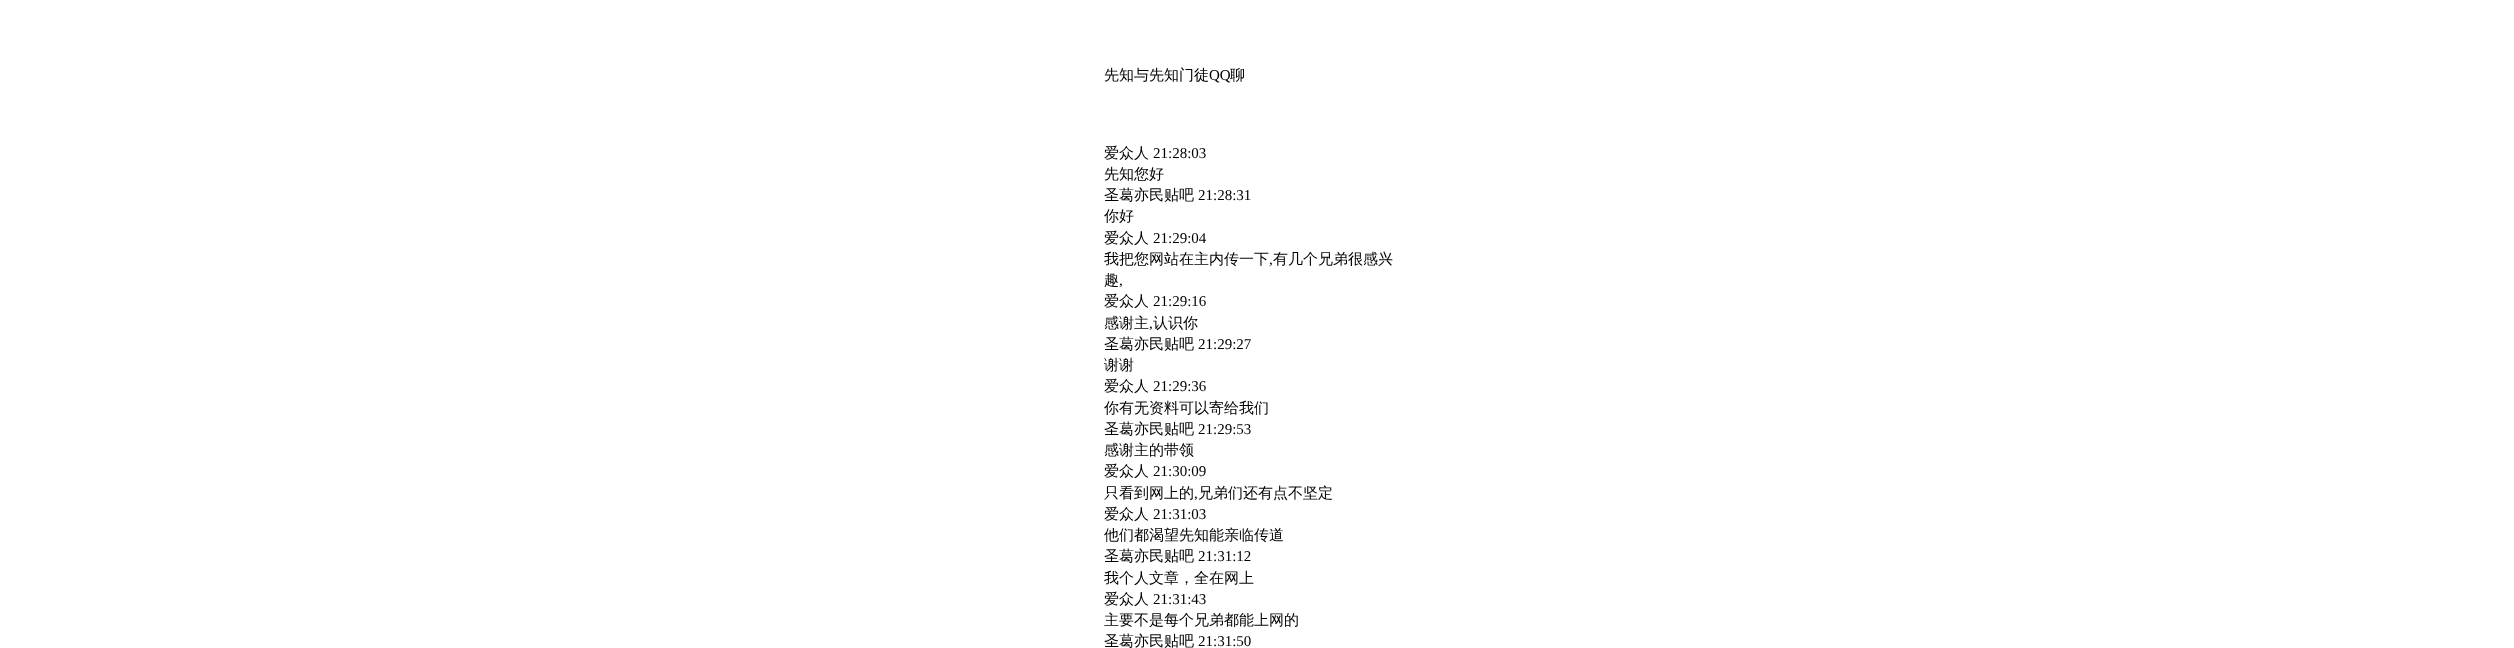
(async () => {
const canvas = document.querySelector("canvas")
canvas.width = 2514
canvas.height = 648
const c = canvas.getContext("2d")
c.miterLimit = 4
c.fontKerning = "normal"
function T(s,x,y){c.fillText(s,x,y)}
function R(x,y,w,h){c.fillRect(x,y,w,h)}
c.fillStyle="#fff"
R(0,0,2514,648)
c.font="500 15px WenQuanYi Zen Hei"
c.fillStyle="#000"
T("先知与先知门徒",1104,80)
c.font="15px Liberation Serif"
T("QQ",1209,80)
c.font="500 15px WenQuanYi Zen Hei"
T("聊",1230,80)
T("爱众人",1104,158)
c.font="15px Liberation Serif"
T("21:28:03",1153,158)
c.font="500 15px WenQuanYi Zen Hei"
T("先知您好",1104,179)
T("圣葛亦民贴吧",1104,200)
c.font="15px Liberation Serif"
T("21:28:31",1198,200)
c.font="500 15px WenQuanYi Zen Hei"
T("你好",1104,221)
T("爱众人",1104,243)
c.font="15px Liberation Serif"
T("21:29:04",1153,243)
c.font="500 15px WenQuanYi Zen Hei"
T("我把您网站在主内传一下",1104,264)
c.font="15px Liberation Serif"
T(",",1269,264)
c.font="500 15px WenQuanYi Zen Hei"
T("有几个兄弟很感兴",1273,264)
T("趣",1104,285)
c.font="15px Liberation Serif"
T(",",1119,285)
c.font="500 15px WenQuanYi Zen Hei"
T("爱众人",1104,306)
c.font="15px Liberation Serif"
T("21:29:16",1153,306)
c.font="500 15px WenQuanYi Zen Hei"
T("感谢主",1104,328)
c.font="15px Liberation Serif"
T(",",1149,328)
c.font="500 15px WenQuanYi Zen Hei"
T("认识你",1153,328)
T("圣葛亦民贴吧",1104,349)
c.font="15px Liberation Serif"
T("21:29:27",1198,349)
c.font="500 15px WenQuanYi Zen Hei"
T("谢谢",1104,370)
T("爱众人",1104,391)
c.font="15px Liberation Serif"
T("21:29:36",1153,391)
c.font="500 15px WenQuanYi Zen Hei"
T("你有无资料可以寄给我们",1104,413)
T("圣葛亦民贴吧",1104,434)
c.font="15px Liberation Serif"
T("21:29:53",1198,434)
c.font="500 15px WenQuanYi Zen Hei"
T("感谢主的带领",1104,455)
T("爱众人",1104,476)
c.font="15px Liberation Serif"
T("21:30:09",1153,476)
c.font="500 15px WenQuanYi Zen Hei"
T("只看到网上的",1104,498)
c.font="15px Liberation Serif"
T(",",1194,498)
c.font="500 15px WenQuanYi Zen Hei"
T("兄弟们还有点不坚定",1198,498)
T("爱众人",1104,519)
c.font="15px Liberation Serif"
T("21:31:03",1153,519)
c.font="500 15px WenQuanYi Zen Hei"
T("他们都渴望先知能亲临传道",1104,540)
T("圣葛亦民贴吧",1104,561)
c.font="15px Liberation Serif"
T("21:31:12",1198,561)
c.font="500 15px WenQuanYi Zen Hei"
T("我个人文章，全在网上",1104,583)
T("爱众人",1104,604)
c.font="15px Liberation Serif"
T("21:31:43",1153,604)
c.font="500 15px WenQuanYi Zen Hei"
T("主要不是每个兄弟都能上网的",1104,625)
T("圣葛亦民贴吧",1104,646)
c.font="15px Liberation Serif"
T("21:31:50",1198,646)
})()
